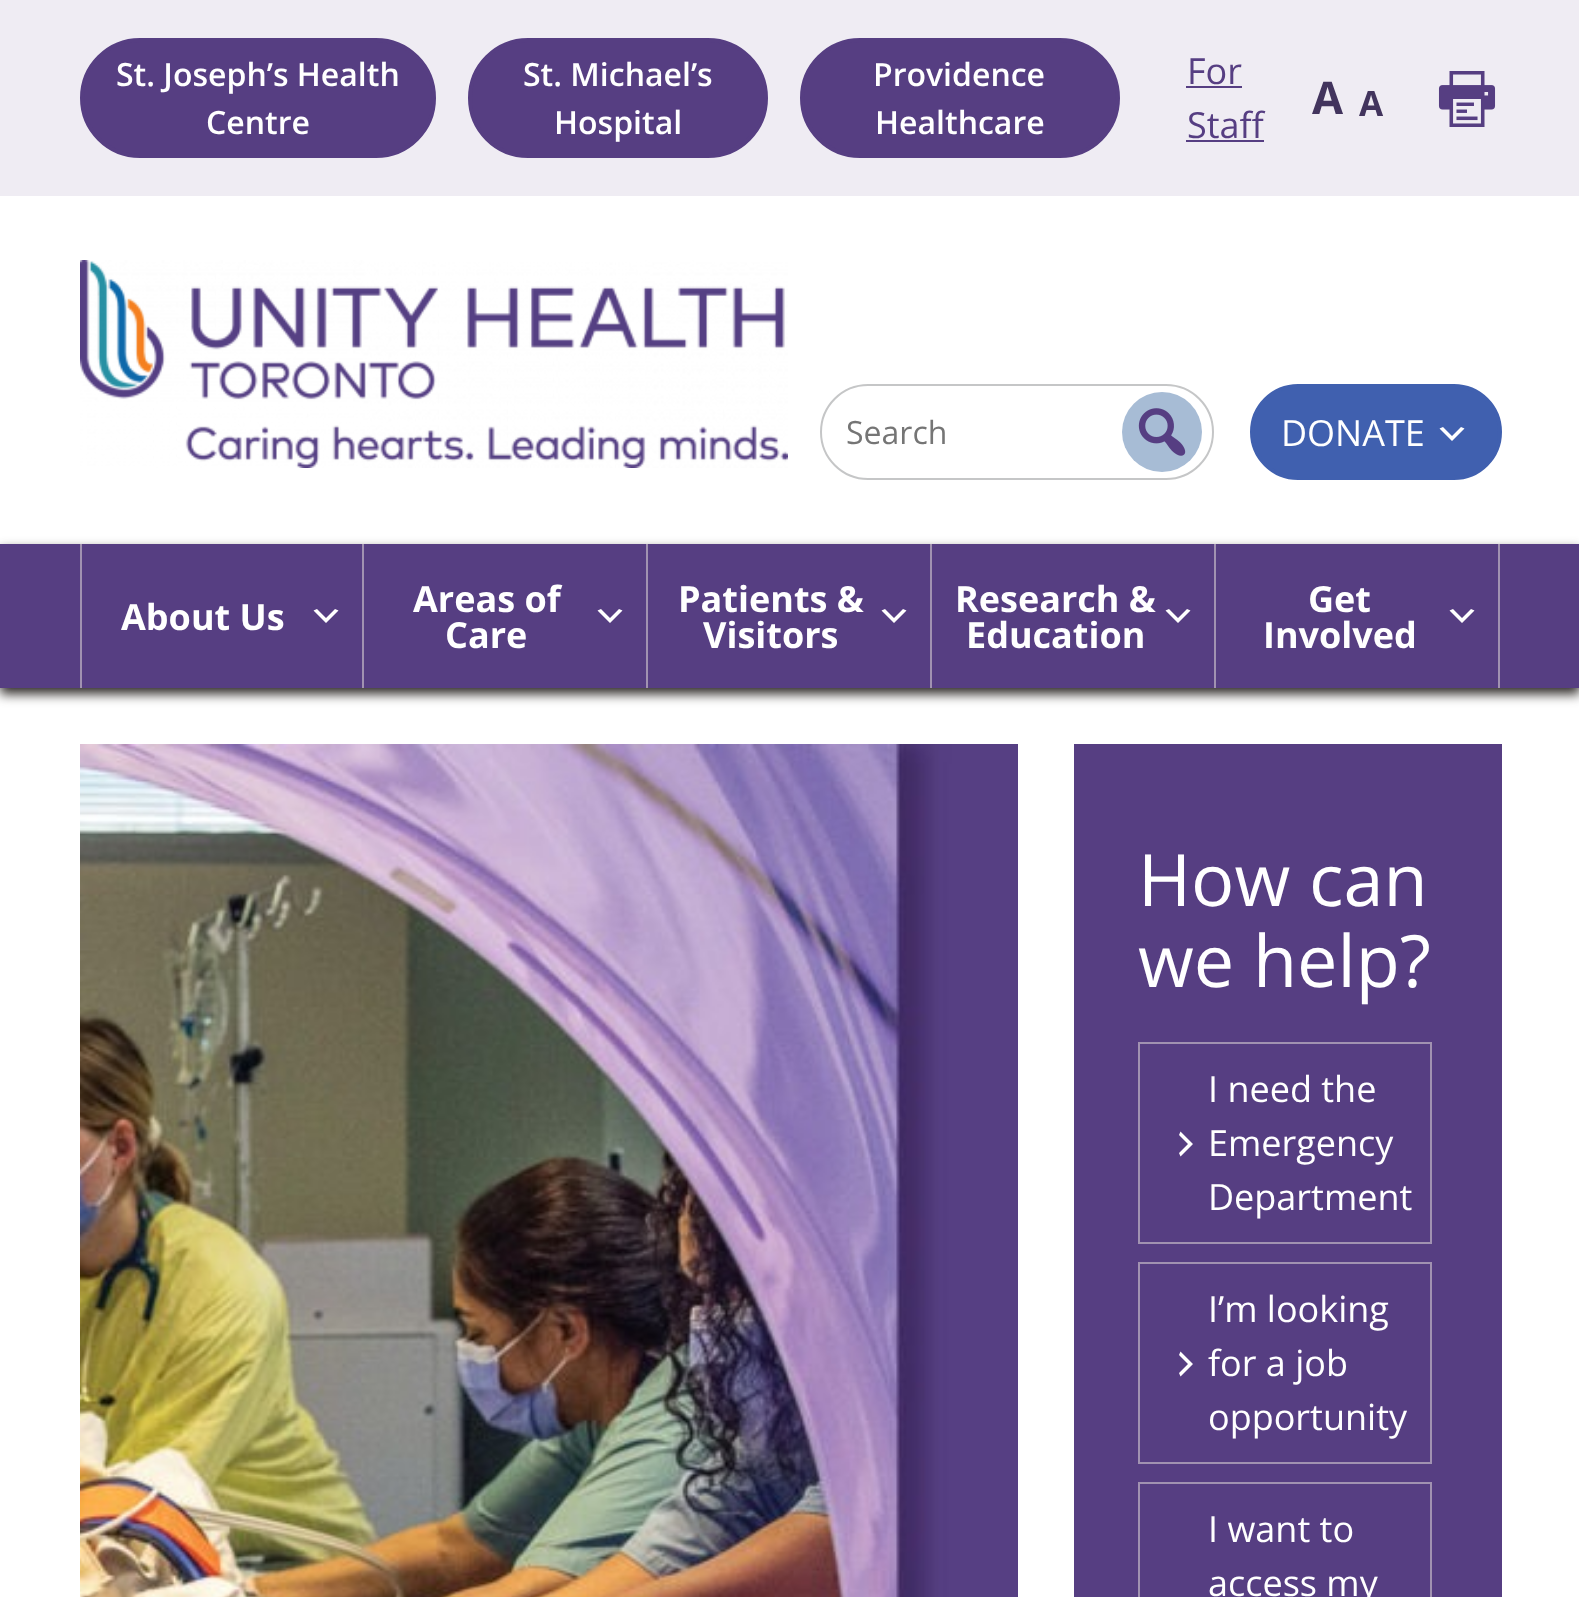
(async () => {
const canvas = document.querySelector("canvas")
canvas.width = 1579
canvas.height = 1597
const c = canvas.getContext("2d")
c.miterLimit = 4
c.fontKerning = "normal"
function T(s,x,y){c.fillText(s,x,y)}
function R(x,y,w,h){c.fillRect(x,y,w,h)}
async function I(src,x,y,w,h){const img=new Image();img.src=src;await img.decode();c.drawImage(img,x,y,w,h)}
let path
c.fillStyle="#fff"
R(0,0,1579,1597)
c.fillStyle="#efecf3"
R(0,0,1579,196)
c.fillStyle="#563e82"
c.beginPath()
c.roundRect(82,40,352,116,58)
c.fill()
c.strokeStyle="#563e82"
c.lineWidth=4
c.stroke()
c.font="600 32px Open Sans"
c.fillStyle="#fff"
T("St. Joseph’s Health",116,86)
T("Centre",206,134)
c.fillStyle="#563e82"
c.beginPath()
c.roundRect(470,40,296,116,58)
c.fill()
c.stroke()
c.fillStyle="#fff"
T("St. Michael’s",523,86)
T("Hospital",554,134)
c.fillStyle="#563e82"
c.beginPath()
c.roundRect(802,40,316,116,58)
c.fill()
c.stroke()
c.fillStyle="#fff"
T("Providence",873,86)
T("Healthcare",875,134)
c.font="36px Open Sans"
c.fillStyle="#563e82"
T("For",1187,84)
R(1186,86,56,2)
T("Staff",1187,138)
R(1186,140,78,2)
c.font="bold 45px Open Sans"
c.fillStyle="#42345d"
T("A",1312,114)
c.font="bold 35px Open Sans"
T("A",1359,116)
await I("1.png",1438,71,58,56)
await I("2.png",80,260,708,208)
c.beginPath()
c.roundRect(821,385,392,94,47)
c.strokeStyle="#c5c6c7"
c.lineWidth=2
c.stroke()
c.font="32px Open Sans"
c.fillStyle="#757575"
T("Search",846,444)
c.fillStyle="#a7bcd5"
c.beginPath()
c.arc(1162,432,40,0,7)
c.fill()
await I("3.png",1138,408,48,48)
c.fillStyle="#4060af"
c.beginPath()
c.roundRect(1252,386,248,92,46)
c.fill()
c.strokeStyle="#4060af"
c.lineWidth=4
c.stroke()
c.font="36px Open Sans"
c.fillStyle="#fff"
T("DONATE",1281,446)
path = new Path2D("M1443 427l9 9l9-9l3.5 1.5l-12.5 12.5l-12.5-12.5z")
c.fill(path)
c.fillStyle="#2d2926"
c.filter="blur(6px)"
c.beginPath()
c.rect(0,550,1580,144)
c.fill()
c.filter="none"
c.fillStyle="#563e82"
R(0,544,1579,144)
c.fillStyle="#a192b1"
R(362,544,2,144)
R(80,544,2,144)
c.font="bold 36px Open Sans"
c.fillStyle="#fff"
T("About Us",121,630)
path = new Path2D("M317 609l9 9l9-9l3.5 1.5l-12.5 12.5l-12.5-12.5z")
c.fill(path)
c.fillStyle="#a192b1"
R(646,544,2,144)
c.fillStyle="#fff"
T("Areas of",413,612)
T("Care",445,648)
path = new Path2D("M601 609l9 9l9-9l3.5 1.5l-12.5 12.5l-12.5-12.5z")
c.fill(path)
c.fillStyle="#a192b1"
R(930,544,2,144)
c.fillStyle="#fff"
T("Patients &",678,612)
T("Visitors",703,648)
path = new Path2D("M885 609l9 9l9-9l3.5 1.5l-12.5 12.5l-12.5-12.5z")
c.fill(path)
c.fillStyle="#a192b1"
R(1214,544,2,144)
c.fillStyle="#fff"
T("Research &",955,612)
T("Education",966,648)
path = new Path2D("M1169 609l9 9l9-9l3.5 1.5l-12.5 12.5l-12.5-12.5z")
c.fill(path)
c.fillStyle="#a192b1"
R(1498,544,2,144)
c.fillStyle="#fff"
T("Get",1308,612)
T("Involved",1263,648)
path = new Path2D("M1453 609l9 9l9-9l3.5 1.5l-12.5 12.5l-12.5-12.5z")
c.fill(path)
await I("4.png",80,744,938,853)
c.fillStyle="#563e82"
R(1074,744,428,853)
c.font="72px Open Sans"
c.fillStyle="#fff"
T("How can",1138,906)
T("we help?",1138,987)
c.strokeStyle="#a192b1"
c.lineWidth=2
c.strokeRect(1139,1043,292,200)
path = new Path2D("M1179 1153l9-9l-9-9l1.5-3.5l12.5 12.5l-12.5 12.5z")
c.fill(path)
c.font="36px Open Sans"
T("I need the",1208,1102)
T("Emergency",1208,1156)
T("Department",1208,1210)
c.strokeRect(1139,1263,292,200)
path = new Path2D("M1179 1373l9-9l-9-9l1.5-3.5l12.5 12.5l-12.5 12.5z")
c.fill(path)
T("I’m looking",1208,1322)
T("for a job",1208,1376)
T("opportunity",1208,1430)
c.strokeRect(1139,1483,292,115)
T("I want to",1208,1542)
T("access my",1208,1596)
})()
